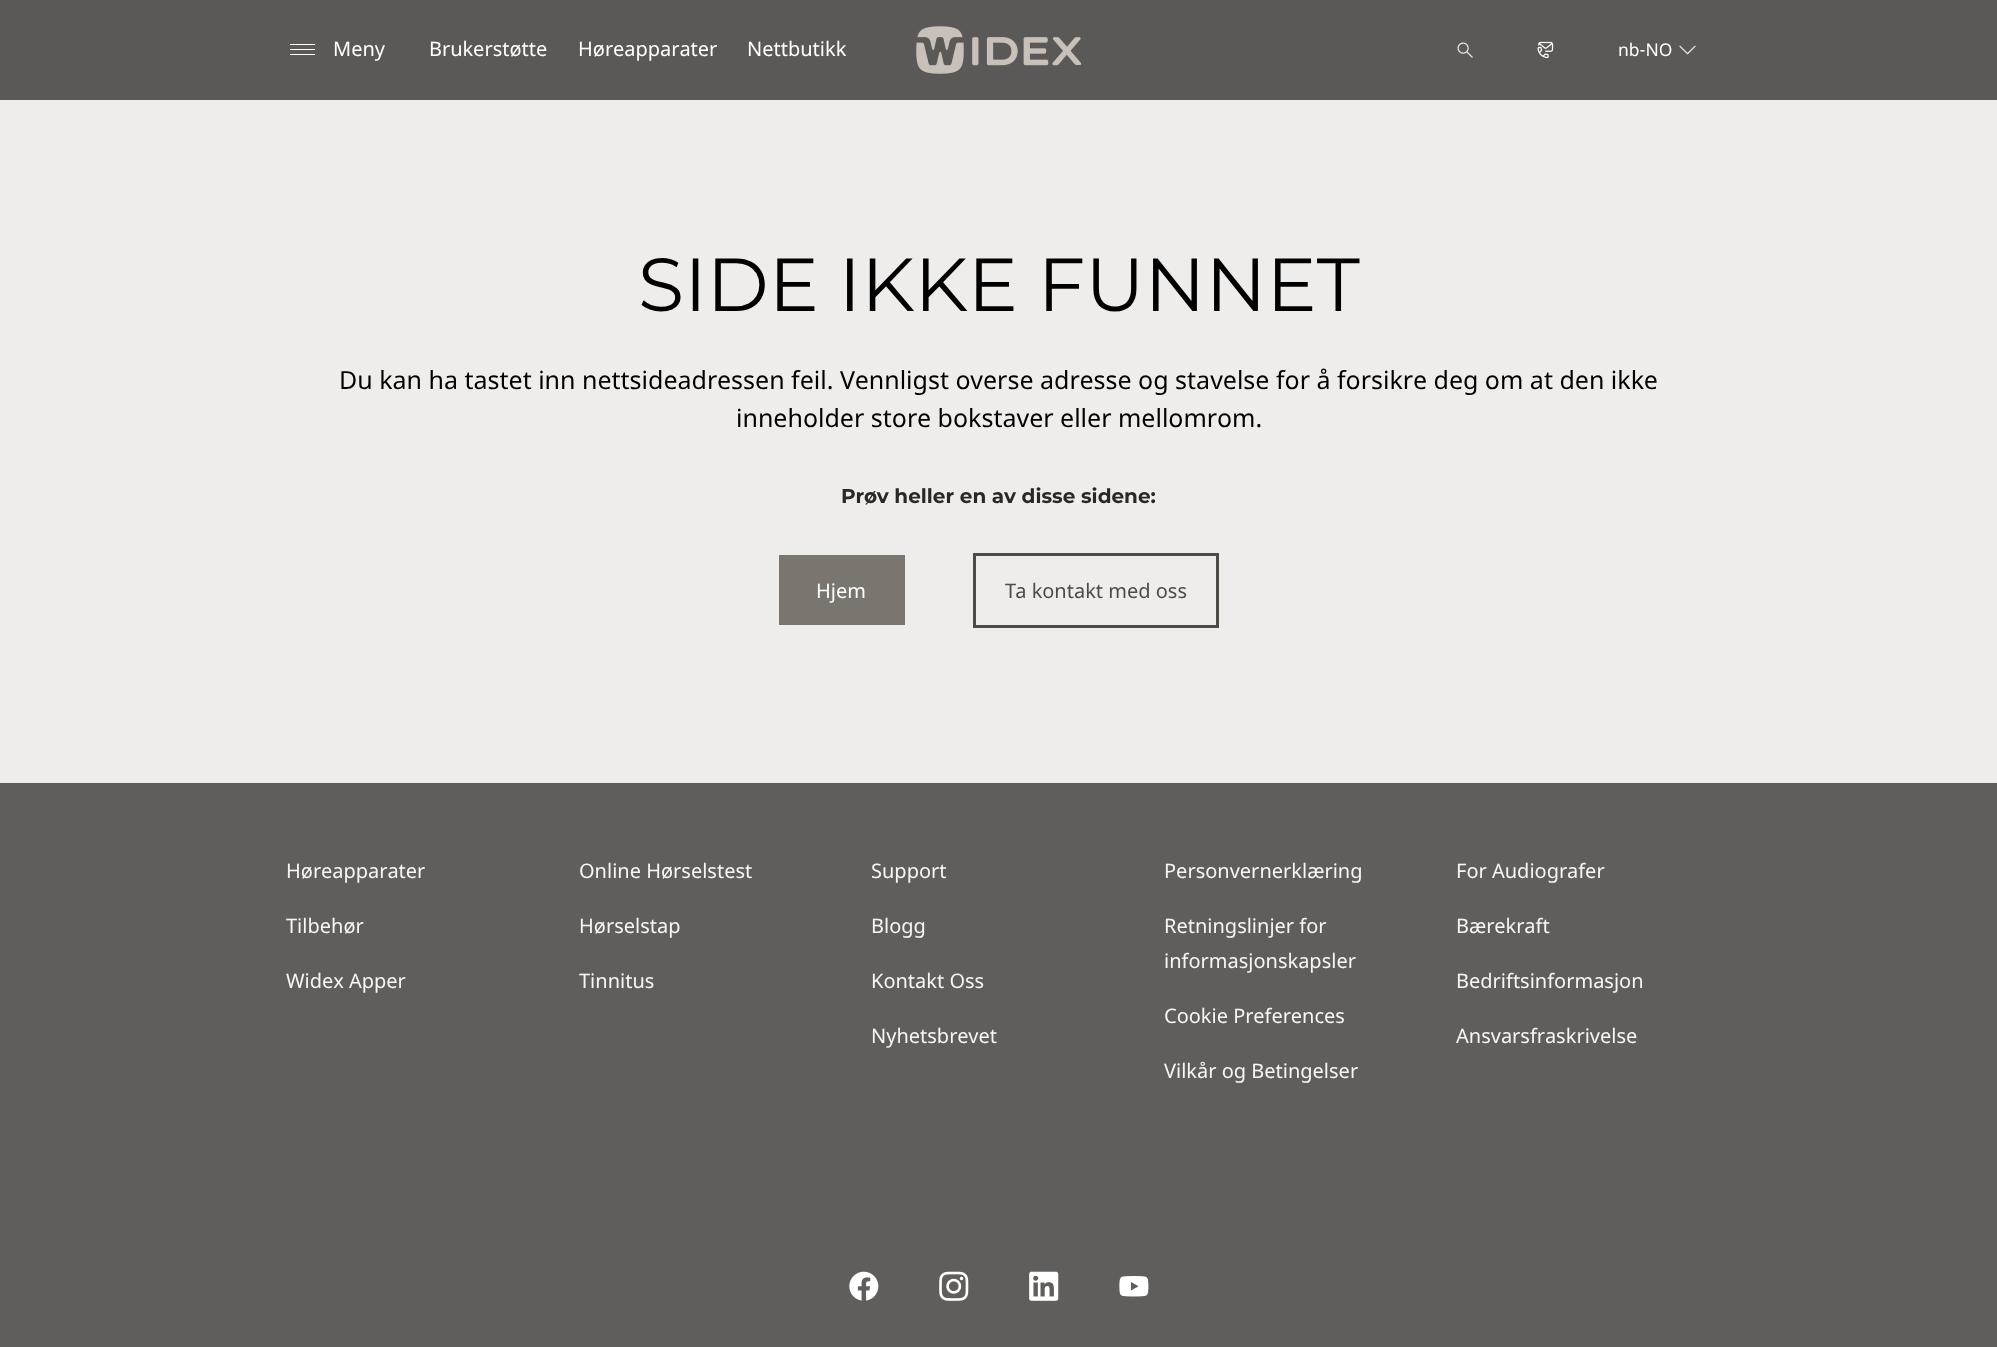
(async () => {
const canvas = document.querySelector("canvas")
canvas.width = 1997
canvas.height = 1347
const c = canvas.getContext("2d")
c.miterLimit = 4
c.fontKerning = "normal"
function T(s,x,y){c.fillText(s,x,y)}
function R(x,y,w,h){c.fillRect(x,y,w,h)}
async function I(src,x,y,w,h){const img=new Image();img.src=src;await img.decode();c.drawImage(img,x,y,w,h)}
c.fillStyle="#efedec"
R(0,0,1997,1347)
c.fillStyle="#5b5958"
R(0,0,1997,100)
c.fillStyle="#fff"
R(290,49,25,1)
R(290,44,25,1)
R(290,54,25,1)
c.font="20px Noto Sans"
T("Meny",333,56)
T("Brukerstøtte",429,56)
T("Høreapparater",578,56)
T("Nettbutikk",747,56)
await I("1.png",916,26,165,48)
await I("2.png",1457,42,16,16)
await I("3.png",1537,41,17,18)
c.font="17.5px Noto Sans"
T("nb-NO",1618,56)
await I("4.png",1679,45,17,10)
c.font="75px Montserrat"
c.fillStyle="#000"
T("SIDE IKKE FUNNET",638,311)
c.font="25px Noto Sans"
T("Du kan ha tastet inn nettsideadressen feil. Vennligst overse adresse og stavelse for å forsikre deg om at den ikke",339,389)
T("inneholder store bokstaver eller mellomrom.",736,427)
c.font="bold 20px Montserrat"
c.fillStyle="#2a2826"
T("Prøv heller en av disse sidene:",841,503)
c.fillStyle="#7b756f"
R(779,555,126,70)
c.font="20px Noto Sans"
c.fillStyle="#fff"
T("Hjem",816,598)
c.strokeStyle="#4e4a46"
c.lineWidth=3
c.strokeRect(974.5,554.5,243,72)
c.fillStyle="#4e4a46"
T("Ta kontakt med oss",1005,598)
c.fillStyle="#605e5d"
R(0,783,1997,564)
c.fillStyle="#f7f6f5"
T("Høreapparater",286,878)
T("Tilbehør",286,933)
T("Widex Apper",286,988)
T("Online Hørselstest",579,878)
T("Hørselstap",579,933)
T("Tinnitus",579,988)
T("Support",871,878)
T("Blogg",871,933)
T("Kontakt Oss",871,988)
T("Nyhetsbrevet",871,1043)
T("Personvernerklæring",1164,878)
T("Retningslinjer for",1164,933)
T("informasjonskapsler",1164,968)
T("Cookie Preferences",1164,1023)
T("Vilkår og Betingelser",1164,1078)
T("For Audiografer",1456,878)
T("Bærekraft",1456,933)
T("Bedriftsinformasjon",1456,988)
T("Ansvarsfraskrivelse",1456,1043)
await I("5.png",849,1271,30,30)
await I("6.png",939,1271,30,30)
await I("7.png",1029,1271,30,30)
await I("8.png",1119,1276,30,21)
})()
